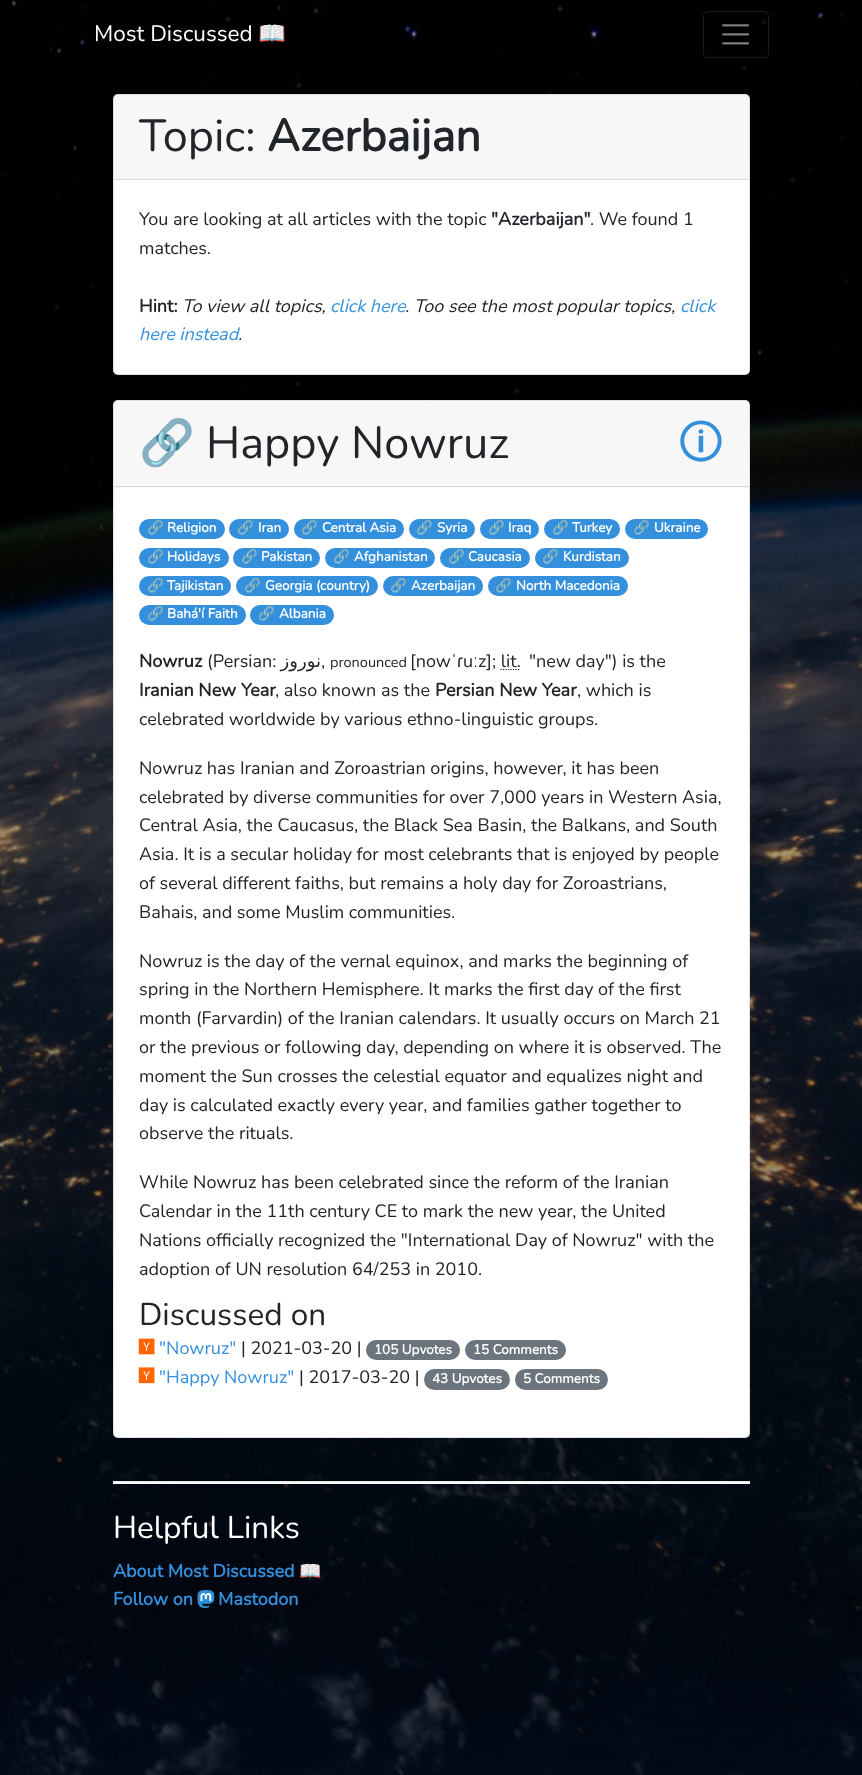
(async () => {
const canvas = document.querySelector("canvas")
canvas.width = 862
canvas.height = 1775
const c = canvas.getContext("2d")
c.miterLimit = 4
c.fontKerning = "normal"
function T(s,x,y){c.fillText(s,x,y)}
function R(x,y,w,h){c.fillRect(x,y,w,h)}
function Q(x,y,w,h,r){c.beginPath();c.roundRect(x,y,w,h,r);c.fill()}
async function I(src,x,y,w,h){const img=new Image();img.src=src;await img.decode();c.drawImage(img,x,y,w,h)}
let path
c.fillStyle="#fff"
R(0,0,862,1775)
await I("1.png",0,0,862,1775)
c.font="200 22.5px Nunito"
T("Most Discussed",94,41)
c.font="22.5px Noto Color Emoji"
T("📖",258,41)
c.beginPath()
c.roundRect(703.5,11.5,65,46,4.5)
c.strokeStyle="#1a1a1a"
c.stroke()
await I("2.png",722,24,28,21)
Q(113,94,637,281,5)
c.beginPath()
c.roundRect(113.5,94.5,636,280,4.5)
c.strokeStyle="#0000001f"
c.stroke()
c.fillStyle="#00000008"
R(114,95,635,84)
c.fillStyle="#d8d8d8"
R(114,179,635,1)
c.font="200 45px Nunito"
c.fillStyle="#212529"
T("Topic:",139,151)
c.font="bold 45px Nunito"
T("Azerbaijan",267,151)
c.font="200 18px Nunito"
T("You are looking at all articles with the topic",139,225)
c.font="bold 18px Nunito"
T("\"Azerbaijan\"",491,225)
c.font="200 18px Nunito"
T(". We found 1",590,225)
T("matches.",139,254)
c.font="bold 18px Nunito"
T("Hint:",139,312)
c.font="italic 200 18px Nunito"
T("To view all topics,",182,312)
c.fillStyle="#3490dc"
T("click here",330,312)
c.fillStyle="#212529"
T(". Too see the most popular topics,",405,312)
c.fillStyle="#3490dc"
T("click",680,312)
T("here instead",139,340)
c.fillStyle="#212529"
T(".",238,340)
c.fillStyle="#fff"
Q(113,400,637,1038,5)
c.beginPath()
c.roundRect(113.5,400.5,636,1037,4.5)
c.stroke()
c.fillStyle="#00000008"
R(114,401,635,87)
c.fillStyle="#d8d8d8"
R(114,486,635,1)
c.font="45px Noto Color Emoji"
c.fillStyle="#212529"
T("🔗",139,458)
c.font="200 45px Nunito"
T("Happy Nowruz",206,458)
c.font="45px 'Noto Sans Symbols 2'"
c.fillStyle="#3490dc"
T("🛈",678,458)
Q(139,519,86,20,10)
c.font="bold 13.5px Noto Color Emoji"
c.fillStyle="#fff"
T("🔗",147,532)
c.font="bold 13.5px Nunito"
T("Religion",167,532)
c.fillStyle="#3490dc"
Q(229,519,60,20,10)
c.font="bold 13.5px Noto Color Emoji"
c.fillStyle="#fff"
T("🔗",237,532)
c.font="bold 13.5px Nunito"
T("Iran",258,532)
c.fillStyle="#3490dc"
Q(294,519,110,20,10)
c.font="bold 13.5px Noto Color Emoji"
c.fillStyle="#fff"
T("🔗",301,532)
c.font="bold 13.5px Nunito"
T("Central Asia",322,532)
c.fillStyle="#3490dc"
Q(409,519,66,20,10)
c.font="bold 13.5px Noto Color Emoji"
c.fillStyle="#fff"
T("🔗",416,532)
c.font="bold 13.5px Nunito"
T("Syria",437,532)
c.fillStyle="#3490dc"
Q(480,519,59,20,10)
c.font="bold 13.5px Noto Color Emoji"
c.fillStyle="#fff"
T("🔗",488,532)
c.font="bold 13.5px Nunito"
T("Iraq",508,532)
c.fillStyle="#3490dc"
Q(544,519,76,20,10)
c.font="bold 13.5px Noto Color Emoji"
c.fillStyle="#fff"
T("🔗",552,532)
c.font="bold 13.5px Nunito"
T("Turkey",572,532)
c.fillStyle="#3490dc"
Q(625,519,83,20,10)
c.font="bold 13.5px Noto Color Emoji"
c.fillStyle="#fff"
T("🔗",633,532)
c.font="bold 13.5px Nunito"
T("Ukraine",654,532)
c.fillStyle="#3490dc"
Q(139,548,90,20,10)
c.font="bold 13.5px Noto Color Emoji"
c.fillStyle="#fff"
T("🔗",147,561)
c.font="bold 13.5px Nunito"
T("Holidays",167,561)
c.fillStyle="#3490dc"
Q(233,548,87,20,10)
c.font="bold 13.5px Noto Color Emoji"
c.fillStyle="#fff"
T("🔗",241,561)
c.font="bold 13.5px Nunito"
T("Pakistan",261,561)
c.fillStyle="#3490dc"
Q(325,548,110,20,10)
c.font="bold 13.5px Noto Color Emoji"
c.fillStyle="#fff"
T("🔗",333,561)
c.font="bold 13.5px Nunito"
T("Afghanistan",354,561)
c.fillStyle="#3490dc"
Q(440,548,90,20,10)
c.font="bold 13.5px Noto Color Emoji"
c.fillStyle="#fff"
T("🔗",448,561)
c.font="bold 13.5px Nunito"
T("Caucasia",468,561)
c.fillStyle="#3490dc"
Q(535,548,94,20,10)
c.font="bold 13.5px Noto Color Emoji"
c.fillStyle="#fff"
T("🔗",542,561)
c.font="bold 13.5px Nunito"
T("Kurdistan",563,561)
c.fillStyle="#3490dc"
Q(139,576,92,20,10)
c.font="bold 13.5px Noto Color Emoji"
c.fillStyle="#fff"
T("🔗",147,590)
c.font="bold 13.5px Nunito"
T("Tajikistan",167,590)
c.fillStyle="#3490dc"
Q(236,576,142,20,10)
c.font="bold 13.5px Noto Color Emoji"
c.fillStyle="#fff"
T("🔗",244,590)
c.font="bold 13.5px Nunito"
T("Georgia (country)",265,590)
c.fillStyle="#3490dc"
Q(383,576,100,20,10)
c.font="bold 13.5px Noto Color Emoji"
c.fillStyle="#fff"
T("🔗",390,590)
c.font="bold 13.5px Nunito"
T("Azerbaijan",411,590)
c.fillStyle="#3490dc"
Q(488,576,140,20,10)
c.font="bold 13.5px Noto Color Emoji"
c.fillStyle="#fff"
T("🔗",495,590)
c.font="bold 13.5px Nunito"
T("North Macedonia",516,590)
c.fillStyle="#3490dc"
Q(139,605,107,20,10)
c.font="bold 13.5px Noto Color Emoji"
c.fillStyle="#fff"
T("🔗",147,618)
c.font="bold 13.5px Nunito"
T("Bahá'í Faith",167,618)
c.fillStyle="#3490dc"
Q(250,605,84,20,10)
c.font="bold 13.5px Noto Color Emoji"
c.fillStyle="#fff"
T("🔗",258,618)
c.font="bold 13.5px Nunito"
T("Albania",279,618)
c.font="bold 18px Nunito"
c.fillStyle="#212529"
T("Nowruz",139,667)
c.font="200 18px Nunito"
T("(Persian:",207,667)
c.direction="rtl"
c.font="18px DejaVu Sans"
T("نوروز",321,667)
c.direction="ltr"
c.font="200 18px Nunito"
T(",",321,667)
c.font="200 14.5px Nunito"
T("pronounced",330,667)
c.font="200 18px Nunito"
T("[now",410,667)
c.font="18px Liberation Sans"
T("ˈɾ",451,667)
c.font="200 18px Nunito"
T("u",463,667)
c.font="18px Liberation Sans"
T("ː",473,667)
c.font="200 18px Nunito"
T("z]; lit.",478,667)
T("\"new day\") is the",529,667)
path = new Path2D("M500.5 669.5h20")
c.strokeStyle="#212529"
c.lineWidth=1.2
c.setLineDash([1.25,1.25])
c.stroke(path)
c.font="bold 18px Nunito"
T("Iranian New Year",139,696)
c.font="200 18px Nunito"
T(", also known as the",275,696)
c.font="bold 18px Nunito"
T("Persian New Year",435,696)
c.font="200 18px Nunito"
T(", which is",577,696)
T("celebrated worldwide by various ethno-linguistic groups.",139,725)
T("Nowruz has Iranian and Zoroastrian origins, however, it has been",139,774)
T("celebrated by diverse communities for over 7,000 years in Western Asia,",139,803)
T("Central Asia, the Caucasus, the Black Sea Basin, the Balkans, and South",139,831)
T("Asia. It is a secular holiday for most celebrants that is enjoyed by people",139,860)
T("of several different faiths, but remains a holy day for Zoroastrians,",139,889)
T("Bahais, and some Muslim communities.",139,918)
T("Nowruz is the day of the vernal equinox, and marks the beginning of",139,967)
T("spring in the Northern Hemisphere. It marks the first day of the first",139,995)
T("month (Farvardin) of the Iranian calendars. It usually occurs on March 21",139,1024)
T("or the previous or following day, depending on where it is observed. The",139,1053)
T("moment the Sun crosses the celestial equator and equalizes night and",139,1082)
T("day is calculated exactly every year, and families gather together to",139,1111)
T("observe the rituals.",139,1139)
T("While Nowruz has been celebrated since the reform of the Iranian",139,1188)
T("Calendar in the 11th century CE to mark the new year, the United",139,1217)
T("Nations officially recognized the \"International Day of Nowruz\" with the",139,1246)
T("adoption of UN resolution 64/253 in 2010.",139,1275)
c.font="200 31.5px Nunito"
T("Discussed on",139,1325)
await I("3.png",138,1338,17,17)
c.font="200 18px Nunito"
c.fillStyle="#3490dc"
T("\"Nowruz\"",159,1354)
c.fillStyle="#212529"
T("| 2021-03-20 |",241,1354)
c.fillStyle="#6c757d"
Q(366,1340,94,20,10)
c.font="bold 13.5px Nunito"
c.fillStyle="#fff"
T("105 Upvotes",374,1354)
c.fillStyle="#6c757d"
Q(465,1340,101,20,10)
c.fillStyle="#fff"
T("15 Comments",473,1354)
await I("4.png",138,1367,17,17)
c.font="200 18px Nunito"
c.fillStyle="#3490dc"
T("\"Happy Nowruz\"",159,1383)
c.fillStyle="#212529"
T("| 2017-03-20 |",299,1383)
c.fillStyle="#6c757d"
Q(424,1369,86,21,10.5)
c.font="bold 13.5px Nunito"
c.fillStyle="#fff"
T("43 Upvotes",432,1383)
c.fillStyle="#6c757d"
Q(515,1369,93,21,10.5)
c.fillStyle="#fff"
T("5 Comments",523,1383)
R(113,1482,637,2)
c.fillStyle="#e6e6e6"
R(113,1481,637,1)
c.font="200 31.5px Nunito"
c.fillStyle="#fff"
T("Helpful Links",113,1538)
c.font="bold 18px Nunito"
c.fillStyle="#3490dc"
T("About Most Discussed",113,1577)
c.font="bold 18px Noto Color Emoji"
T("📖",299,1577)
c.font="bold 18px Nunito"
T("Follow on",113,1605)
await I("5.png",197,1590,18,18)
T("Mastodon",218,1605)
})()
